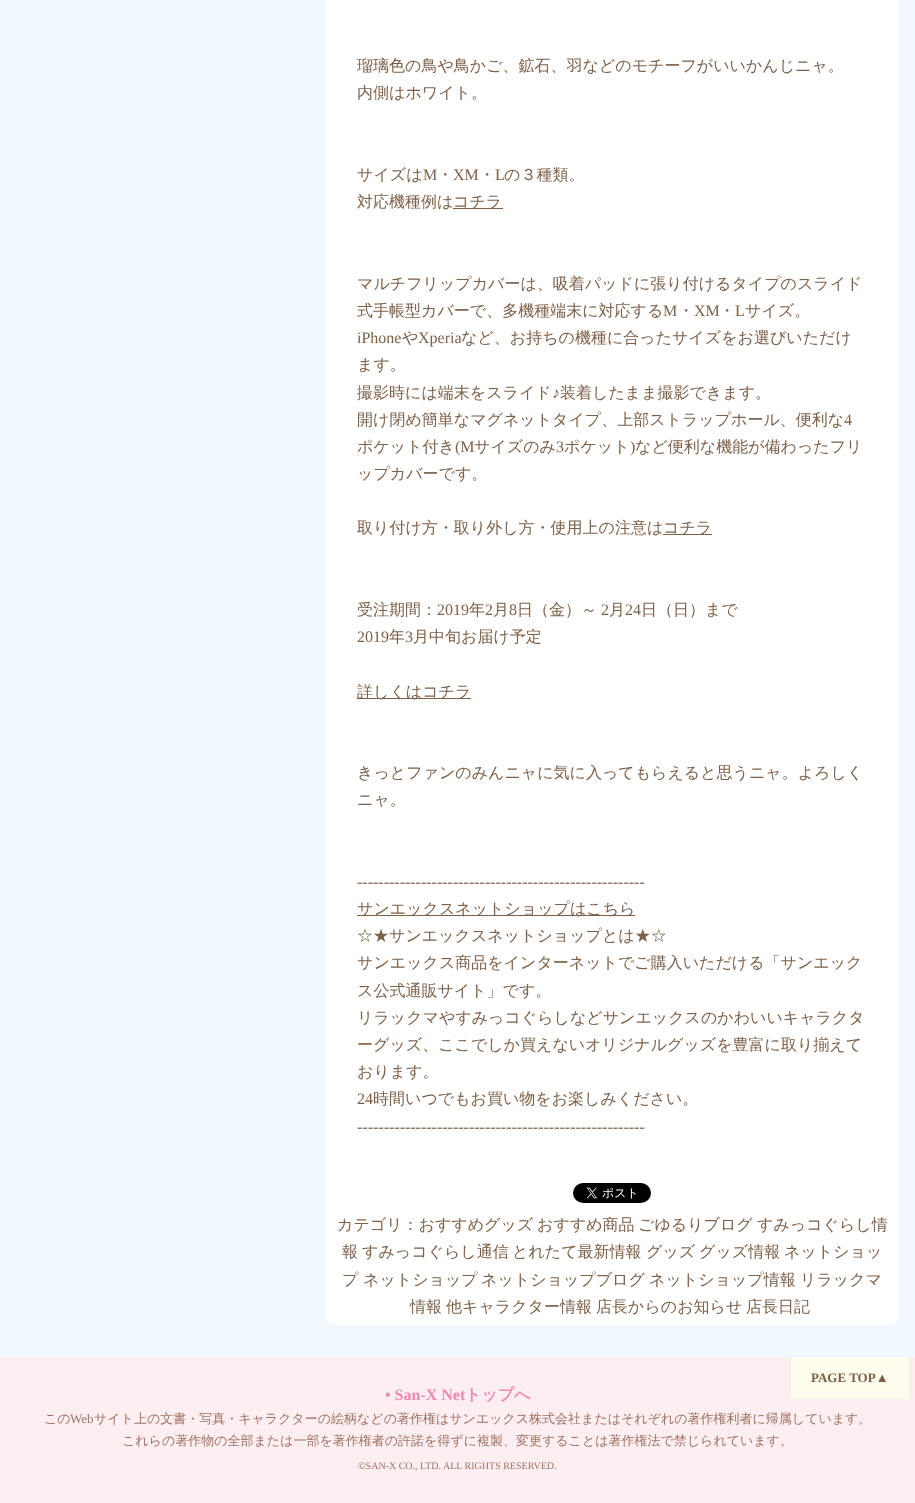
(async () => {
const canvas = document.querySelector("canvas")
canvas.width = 915
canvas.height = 1503
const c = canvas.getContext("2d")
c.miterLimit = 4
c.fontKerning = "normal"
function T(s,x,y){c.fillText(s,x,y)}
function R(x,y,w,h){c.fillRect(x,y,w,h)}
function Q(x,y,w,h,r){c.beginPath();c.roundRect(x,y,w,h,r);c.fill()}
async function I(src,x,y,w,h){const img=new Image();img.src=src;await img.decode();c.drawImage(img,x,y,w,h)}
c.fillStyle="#f1f9fe"
R(0,0,915,1503)
c.fillStyle="#fff"
Q(325,-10,574,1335,10)
c.font="500 16px WenQuanYi Zen Hei"
c.fillStyle="#7d6048"
T("瑠璃色の鳥や鳥かご、鉱石、羽などのモチーフがいいかんじニャ。",357,71)
T("内側はホワイト。",357,98)
T("サイズは",357,180)
c.font="16px Liberation Serif"
T("M",423,180)
c.font="500 16px WenQuanYi Zen Hei"
T("・",437,180)
c.font="16px Liberation Serif"
T("XM",453,180)
c.font="500 16px WenQuanYi Zen Hei"
T("・",479,180)
c.font="16px Liberation Serif"
T("L",495,180)
c.font="500 16px WenQuanYi Zen Hei"
T("の３種類。",504,180)
T("対応機種例は",357,207)
R(453,208,50,1)
T("コチラ",453,207)
T("マルチフリップカバーは、吸着パッドに張り付けるタイプのスライド",357,289)
T("式手帳型カバーで、多機種端末に対応する",357,316)
c.font="16px Liberation Serif"
T("M",663,316)
c.font="500 16px WenQuanYi Zen Hei"
T("・",678,316)
c.font="16px Liberation Serif"
T("XM",694,316)
c.font="500 16px WenQuanYi Zen Hei"
T("・",719,316)
c.font="16px Liberation Serif"
T("L",735,316)
c.font="500 16px WenQuanYi Zen Hei"
T("サイズ。",745,316)
c.font="16px Liberation Serif"
T("iPhone",357,343)
c.font="500 16px WenQuanYi Zen Hei"
T("や",402,343)
c.font="16px Liberation Serif"
T("Xperia",418,343)
c.font="500 16px WenQuanYi Zen Hei"
T("など、お持ちの機種に合ったサイズをお選びいただけ",461,343)
T("ます。",357,370)
T("撮影時には端末をスライド",357,398)
c.font="16px Liberation Serif"
T("♪",552,398)
c.font="500 16px WenQuanYi Zen Hei"
T("装着したまま撮影できます。",560,398)
T("開け閉め簡単なマグネットタイプ、上部ストラップホール、便利な",357,425)
c.font="16px Liberation Serif"
T("4",844,425)
c.font="500 16px WenQuanYi Zen Hei"
T("ポケット付き",357,452)
c.font="16px Liberation Serif"
T("(M",455,452)
c.font="500 16px WenQuanYi Zen Hei"
T("サイズのみ",474,452)
c.font="16px Liberation Serif"
T("3",556,452)
c.font="500 16px WenQuanYi Zen Hei"
T("ポケット",564,452)
c.font="16px Liberation Serif"
T(")",630,452)
c.font="500 16px WenQuanYi Zen Hei"
T("など便利な機能が備わったフリ",635,452)
T("ップカバーです。",357,479)
T("取り付け方・取り外し方・使用上の注意は",357,533)
R(663,534,49,1)
T("コチラ",663,533)
T("受注期間：",357,615)
c.font="16px Liberation Serif"
T("2019",437,615)
c.font="500 16px WenQuanYi Zen Hei"
T("年",469,615)
c.font="16px Liberation Serif"
T("2",485,615)
c.font="500 16px WenQuanYi Zen Hei"
T("月",493,615)
c.font="16px Liberation Serif"
T("8",509,615)
c.font="500 16px WenQuanYi Zen Hei"
T("日（金）～",517,615)
c.font="16px Liberation Serif"
T("2",601,615)
c.font="500 16px WenQuanYi Zen Hei"
T("月",609,615)
c.font="16px Liberation Serif"
T("24",625,615)
c.font="500 16px WenQuanYi Zen Hei"
T("日（日）まで",641,615)
c.font="16px Liberation Serif"
T("2019",357,642)
c.font="500 16px WenQuanYi Zen Hei"
T("年",389,642)
c.font="16px Liberation Serif"
T("3",405,642)
c.font="500 16px WenQuanYi Zen Hei"
T("月中旬お届け予定",413,642)
R(357,698,114,1)
T("詳しくはコチラ",357,697)
T("きっとファンのみんニャに気に入ってもらえると思うニャ。よろしく",357,778)
T("ニャ。",357,805)
c.font="16px Liberation Serif"
T("------------------------------------------------------",357,887)
R(357,915,278,1)
c.font="500 16px WenQuanYi Zen Hei"
T("サンエックスネットショップはこちら",357,914)
T("☆★サンエックスネットショップとは★☆",357,941)
T("サンエックス商品をインターネットでご購入いただける「サンエック",357,968)
T("ス公式通販サイト」です。",357,996)
T("リラックマやすみっコぐらしなどサンエックスのかわいいキャラクタ",357,1023)
T("ーグッズ、ここでしか買えないオリジナルグッズを豊富に取り揃えて",357,1050)
T("おります。",357,1077)
c.font="16px Liberation Serif"
T("24",357,1104)
c.font="500 16px WenQuanYi Zen Hei"
T("時間いつでもお買い物をお楽しみください。",373,1104)
c.font="16px Liberation Serif"
T("------------------------------------------------------",357,1132)
await I("1.png",573,1183,78,20)
c.font="500 16px WenQuanYi Zen Hei"
T("カテゴリ：おすすめグッズ",337,1230)
T("おすすめ商品",537,1230)
T("ごゆるりブログ",638,1230)
T("すみっコぐらし情",757,1230)
T("報",342,1257)
T("すみっコぐらし通信",362,1257)
T("とれたて最新情報",512,1257)
T("グッズ",646,1257)
T("グッズ情報",699,1257)
T("ネットショッ",784,1257)
T("プ",342,1285)
T("ネットショップ",363,1285)
T("ネットショップブログ",481,1285)
T("ネットショップ情報",649,1285)
T("リラックマ",800,1285)
T("情報",410,1312)
T("他キャラクター情報",446,1312)
T("店長からのお知らせ",596,1312)
T("店長日記",746,1312)
c.fillStyle="#fdeef1"
R(0,1357,915,146)
c.fillStyle="#fffeee"
R(791,1357,118,42)
c.font="bold 13px Liberation Serif"
c.fillStyle="#7d6048"
T("PAGE TOP▲",811,1382)
c.font="bold 16px Liberation Serif"
c.fillStyle="#ee87b4"
T("• San-X Net",385,1400)
c.font="bold 16px WenQuanYi Zen Hei"
T("トップへ",465,1400)
c.font="500 13px WenQuanYi Zen Hei"
c.fillStyle="#9e7262"
T("この",44,1423)
c.font="13px Liberation Serif"
T("Web",70,1423)
c.font="500 13px WenQuanYi Zen Hei"
T("サイト上の文書・写真・キャラクターの絵柄などの著作権はサンエックス株式会社またはそれぞれの著作権利者に帰属しています。",94,1423)
T("これらの著作物の全部または一部を著作権者の許諾を得ずに複製、変更することは著作権法で禁じられています。",122,1445)
c.font="10px Liberation Serif"
T("©SAN-X CO., LTD. ALL RIGHTS RESERVED.",358,1469)
})()
